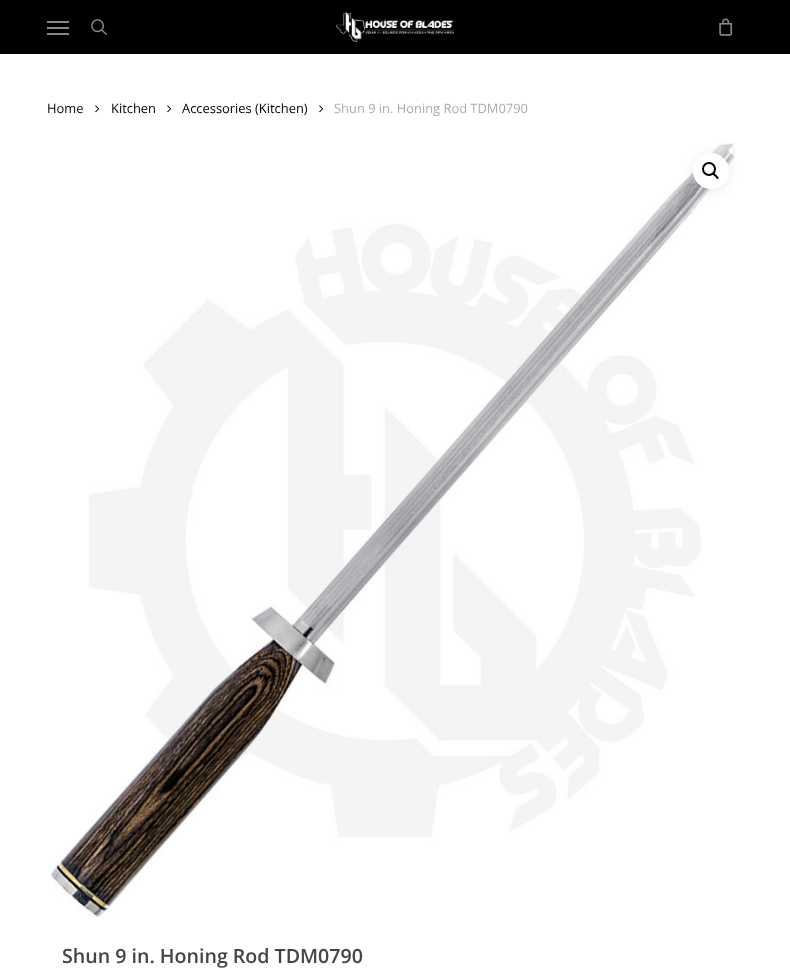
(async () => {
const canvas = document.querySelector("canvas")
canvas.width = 790
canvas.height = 978
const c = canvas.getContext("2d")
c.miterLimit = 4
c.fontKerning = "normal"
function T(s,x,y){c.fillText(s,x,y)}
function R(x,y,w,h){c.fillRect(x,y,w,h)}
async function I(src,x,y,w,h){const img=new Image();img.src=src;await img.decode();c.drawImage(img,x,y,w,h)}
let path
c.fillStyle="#fff"
R(0,0,790,978)
c.fillStyle="#000"
R(0,0,790,54)
await I("1.png",336,12,118,30)
c.fillStyle="#888"
R(47,21,22,2)
R(47,33,22,2)
R(47,27,22,2)
await I("2.png",91,19,16,16)
await I("3.png",719,18,14,18)
c.font="12.9px Open Sans"
c.fillStyle="#000"
T("Home",47,113)
await I("4.png",95,105,5,8)
T("Kitchen",111,113)
await I("4.png",167,105,5,8)
T("Accessories (Kitchen)",182,113)
await I("4.png",319,105,5,8)
c.fillStyle="#ababab"
T("Shun 9 in. Honing Rod TDM0790",334,113)
await I("5.png",51,143,685,775)
c.fillStyle="#00000014"
c.filter="blur(6px)"
c.beginPath()
c.roundRect(693,155,36,36,18)
c.fill()
c.filter="none"
c.fillStyle="#fff"
c.beginPath()
c.arc(711,171,18,0,7)
c.fill()
c.beginPath()
c.arc(709,169,6,0,7)
c.strokeStyle="#000"
c.lineWidth=2
c.stroke()
c.fillStyle="#000"
path = new Path2D("M713 173c1-1 2.5 1.5 3.5 2c.5 1 3 2.5 2 3.5c-1.5 1.5-3-1.5-3.5-2c-.5-.5-3.5-2.5-2-3.5z")
c.fill(path)
c.font="600 19.6px Open Sans"
c.fillStyle="#444"
T("Shun 9 in. Honing Rod TDM0790",62,963)
})()
